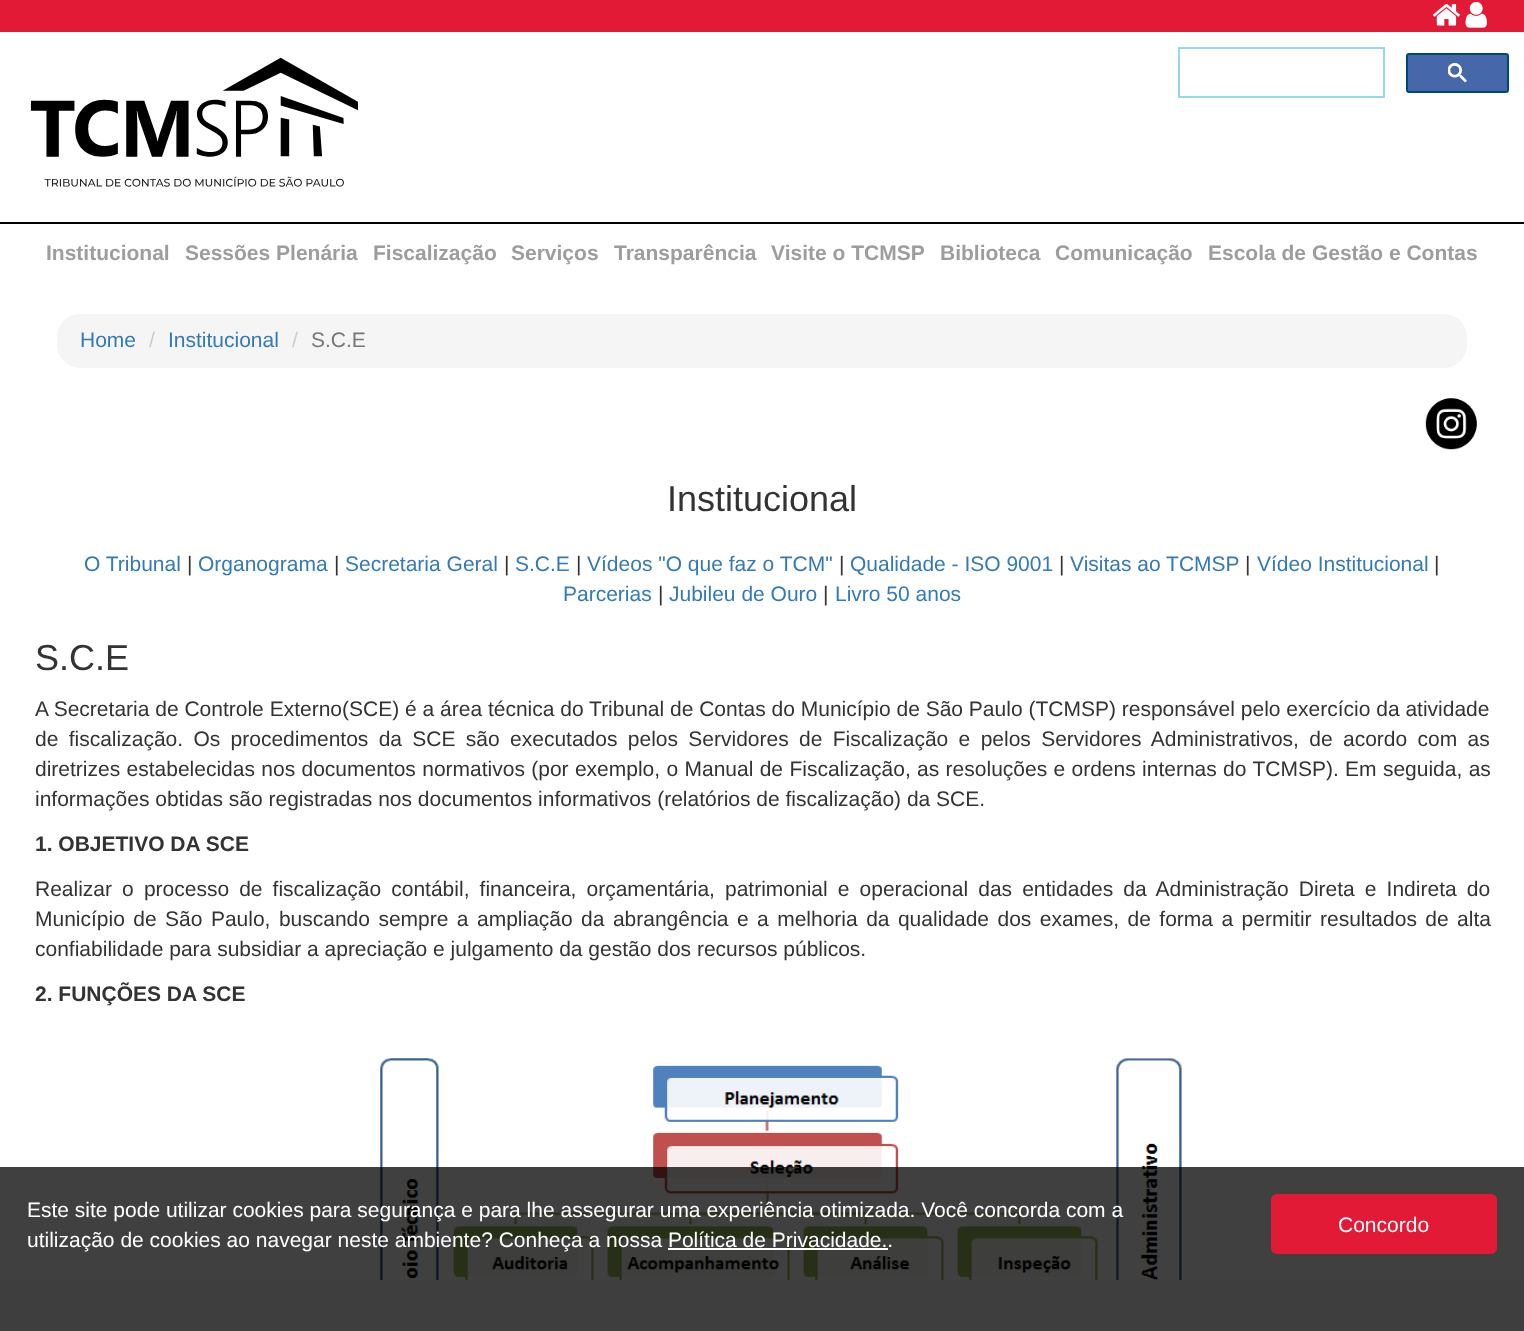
(async () => {
const canvas = document.querySelector("canvas")
canvas.width = 1524
canvas.height = 1331
const c = canvas.getContext("2d")
c.miterLimit = 4
c.fontKerning = "normal"
function T(s,x,y){c.fillText(s,x,y)}
function R(x,y,w,h){c.fillRect(x,y,w,h)}
function Q(x,y,w,h,r){c.beginPath();c.roundRect(x,y,w,h,r);c.fill()}
async function I(src,x,y,w,h){const img=new Image();img.src=src;await img.decode();c.drawImage(img,x,y,w,h)}
c.fillStyle="#fff"
R(0,0,1524,1331)
c.fillStyle="#e21a36"
R(0,0,1524,32)
await I("1.png",1433,4,27,22)
await I("2.png",1465,1,22,27)
await I("3.png",30,57,329,130)
c.strokeStyle="#99d6ea"
c.lineWidth=2
c.strokeRect(1179,48,205,49)
c.fillStyle="#4767ab"
c.beginPath()
c.roundRect(1407,54,101,38,2)
c.fill()
c.strokeStyle="#004976"
c.stroke()
await I("4.png",1448,63,19,20)
c.fillStyle="#000"
R(0,222,1524,2)
c.font="bold 21px Liberation Sans"
c.fillStyle="#9d9d9d"
T("Institucional",46,260)
T("Sessões Plenária",185,260)
T("Fiscalização",373,260)
T("Serviços",511,260)
T("Transparência",614,260)
T("Visite o TCMSP",771,260)
T("Biblioteca",940,260)
T("Comunicação",1055,260)
T("Escola de Gestão e Contas",1208,260)
c.fillStyle="#f5f5f5"
Q(57,314,1410,54,23)
c.font="21px Liberation Sans"
c.fillStyle="#337ab7"
T("Home",80,347)
c.fillStyle="#ccc"
T("/",149,347)
c.fillStyle="#337ab7"
T("Institucional",168,347)
c.fillStyle="#ccc"
T("/",292,347)
c.fillStyle="#777"
T("S.C.E",311,347)
await I("5.png",1425,398,52,52)
c.font="36px Liberation Sans"
c.fillStyle="#333"
T("Institucional",667,511)
c.font="21px Liberation Sans"
c.fillStyle="#337ab7"
T("O Tribunal",84,571)
c.fillStyle="#333"
T("|",187,571)
c.fillStyle="#337ab7"
T("Organograma",198,571)
c.fillStyle="#333"
T("|",334,571)
c.fillStyle="#337ab7"
T("Secretaria Geral",345,571)
c.fillStyle="#333"
T("|",504,571)
c.fillStyle="#337ab7"
T("S.C.E",515,571)
c.fillStyle="#333"
T("|",576,571)
c.fillStyle="#337ab7"
T("Vídeos \"O que faz o TCM\"",587,571)
c.fillStyle="#333"
T("|",839,571)
c.fillStyle="#337ab7"
T("Qualidade - ISO 9001",850,571)
c.fillStyle="#333"
T("|",1059,571)
c.fillStyle="#337ab7"
T("Visitas ao TCMSP",1070,571)
c.fillStyle="#333"
T("|",1245,571)
c.fillStyle="#337ab7"
T("Vídeo Institucional",1257,571)
c.fillStyle="#333"
T("|",1434,571)
c.fillStyle="#337ab7"
T("Parcerias",563,601)
c.fillStyle="#333"
T("|",658,601)
c.fillStyle="#337ab7"
T("Jubileu de Ouro",669,601)
c.fillStyle="#333"
T("|",823,601)
c.fillStyle="#337ab7"
T("Livro 50 anos",835,601)
c.font="36px Liberation Sans"
c.fillStyle="#333"
T("S.C.E",35,670)
c.font="21px Liberation Sans"
T("A Secretaria de Controle Externo(SCE) é a área técnica do Tribunal de Contas do Município de São Paulo (TCMSP) responsável pelo exercício da atividade",35,716)
c.wordSpacing="4.5px"
T("de fiscalização. Os procedimentos da SCE são executados pelos Servidores de Fiscalização e pelos Servidores Administrativos, de acordo com as",35,746)
c.wordSpacing="0.5px"
T("diretrizes estabelecidas nos documentos normativos (por exemplo, o Manual de Fiscalização, as resoluções e ordens internas do TCMSP). Em seguida, as",35,776)
c.wordSpacing="0px"
T("informações obtidas são registradas nos documentos informativos (relatórios de fiscalização) da SCE.",35,806)
c.font="bold 21px Liberation Sans"
T("1. OBJETIVO DA SCE",35,851)
c.wordSpacing="4.25px"
c.font="21px Liberation Sans"
T("Realizar o processo de fiscalização contábil, financeira, orçamentária, patrimonial e operacional das entidades da Administração Direta e Indireta do",35,896)
c.wordSpacing="2.6px"
T("Município de São Paulo, buscando sempre a ampliação da abrangência e a melhoria da qualidade dos exames, de forma a permitir resultados de alta",35,926)
c.wordSpacing="0px"
T("confiabilidade para subsidiar a apreciação e julgamento da gestão dos recursos públicos.",35,956)
c.font="bold 21px Liberation Sans"
T("2. FUNÇÕES DA SCE",35,1001)
await I("6.png",380,1058,802,222)
c.fillStyle="#f8f8f8"
R(0,1280,1524,51)
c.fillStyle="#000000bf"
R(0,1167,1524,164)
c.font="21px Liberation Sans"
c.fillStyle="#fff"
T("Este site pode utilizar cookies para segurança e para lhe assegurar uma experiência otimizada. Você concorda com a",27,1217)
T("utilização de cookies ao navegar neste ambiente? Conheça a nossa Política de Privacidade..",27,1247)
R(668,1248,220,2)
c.fillStyle="#e21a36"
Q(1271,1194,226,60,6)
c.fillStyle="#fff"
T("Concordo",1338,1232)
})()
